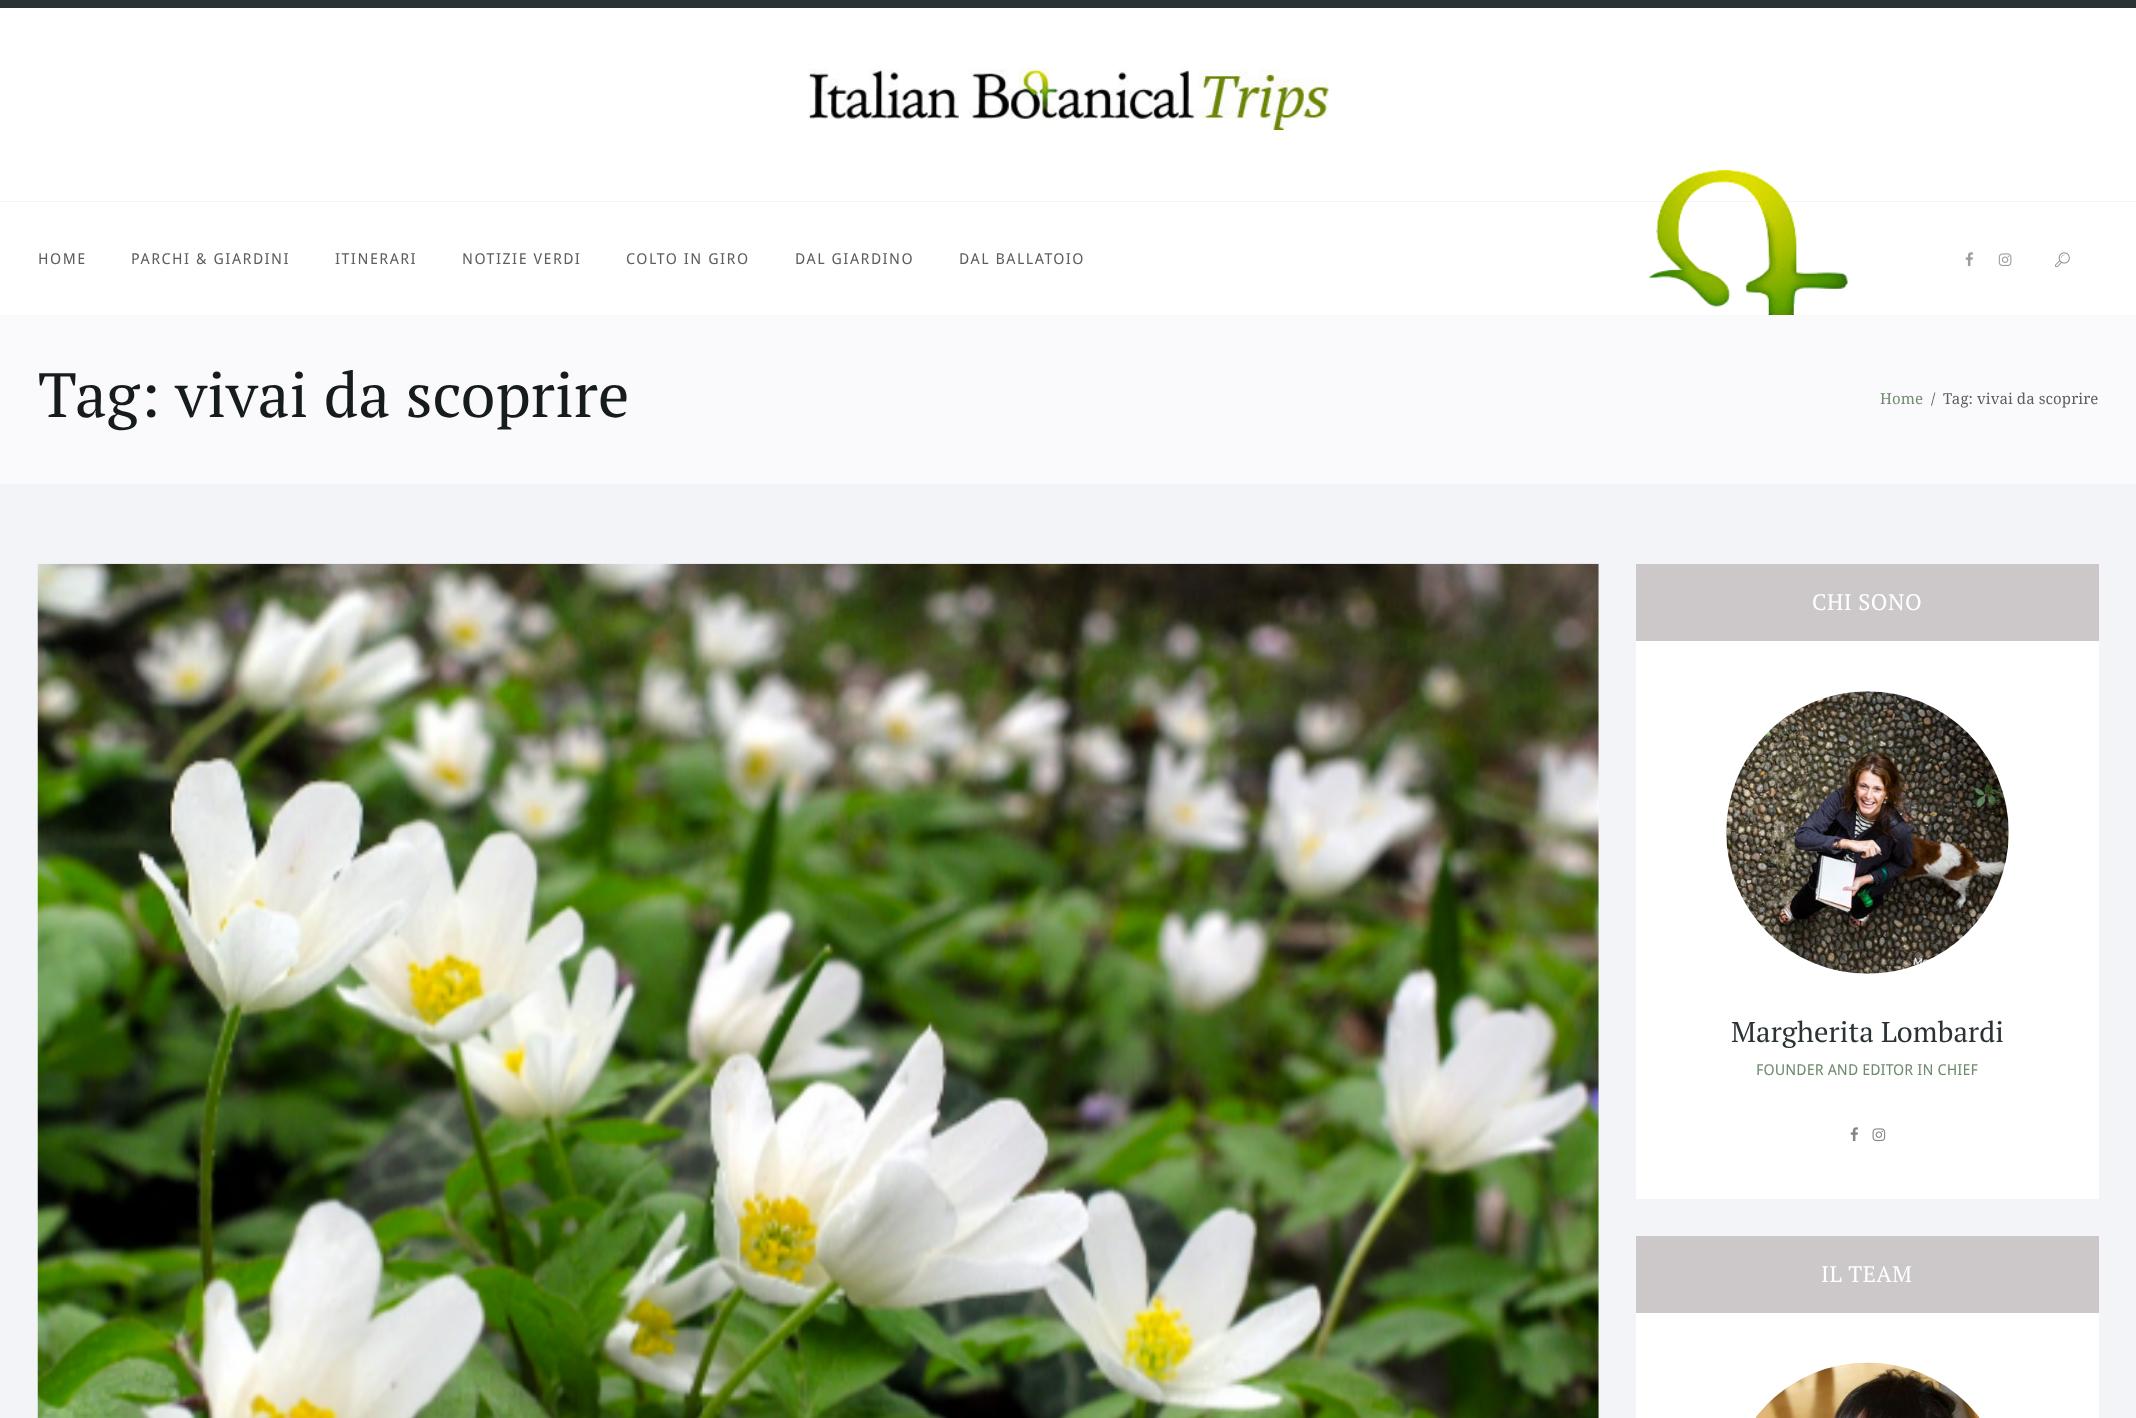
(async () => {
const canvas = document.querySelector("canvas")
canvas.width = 2136
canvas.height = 1418
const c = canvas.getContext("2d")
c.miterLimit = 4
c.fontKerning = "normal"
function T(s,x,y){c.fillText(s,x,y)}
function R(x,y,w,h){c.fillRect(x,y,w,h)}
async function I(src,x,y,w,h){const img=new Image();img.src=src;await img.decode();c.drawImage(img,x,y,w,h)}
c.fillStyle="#f3f4f8"
R(0,0,2136,1418)
c.fillStyle="#fff"
R(0,8,2136,193)
c.fillStyle="#293335"
R(0,0,2136,8)
await I("1.png",808,68,521,62)
c.fillStyle="#fff"
R(0,202,2136,113)
c.letterSpacing="1.5px"
c.font="15px Droid Sans"
c.fillStyle="#5e5e5e"
T("HOME",38,264)
T("PARCHI & GIARDINI",131,264)
T("ITINERARI",335,264)
T("NOTIZIE VERDI",462,264)
T("COLTO IN GIRO",626,264)
T("DAL GIARDINO",795,264)
T("DAL BALLATOIO",959,264)
await I("2.png",1965,252,8,15)
await I("3.png",1998,253,14,14)
await I("4.png",2055,252,15,16)
await I("5.png",1648,169,200,146)
c.fillStyle="#fafafc"
R(0,315,2136,169)
c.letterSpacing="0.1px"
c.font="62.5px PT Serif"
c.fillStyle="#161b1c"
T("Tag: vivai da scoprire",38,417)
c.font="15px Droid Serif"
c.fillStyle="#6f8b6d"
T("Home",1880,404)
c.fillStyle="#5e5e5e"
T("/",1931,404)
T("Tag: vivai da scoprire",1943,404)
c.fillStyle="#fff"
R(1598,564,1,854)
await I("6.png",37,563,1562,855)
R(1636,641,463,558)
c.fillStyle="#ccc8c9"
R(1636,564,463,77)
c.letterSpacing="0.5px"
c.font="22.5px PT Serif"
c.fillStyle="#fff"
T("CHI SONO",1812,610)
await I("7.png",1726,691,283,283)
c.letterSpacing="0.1px"
c.font="28.75px PT Serif"
c.fillStyle="#293335"
T("Margherita Lombardi",1731,1042)
c.font="15px Droid Sans"
c.fillStyle="#6f8b6d"
T("FOUNDER AND EDITOR IN CHIEF",1756,1075)
await I("8.png",1850,1127,8,15)
await I("9.png",1872,1128,14,14)
c.fillStyle="#fff"
R(1636,1313,463,105)
c.fillStyle="#ccc8c9"
R(1636,1236,463,77)
c.letterSpacing="0.5px"
c.font="22.5px PT Serif"
c.fillStyle="#fff"
T("IL TEAM",1821,1282)
await I("10.png",1755,1362,225,56)
})()
